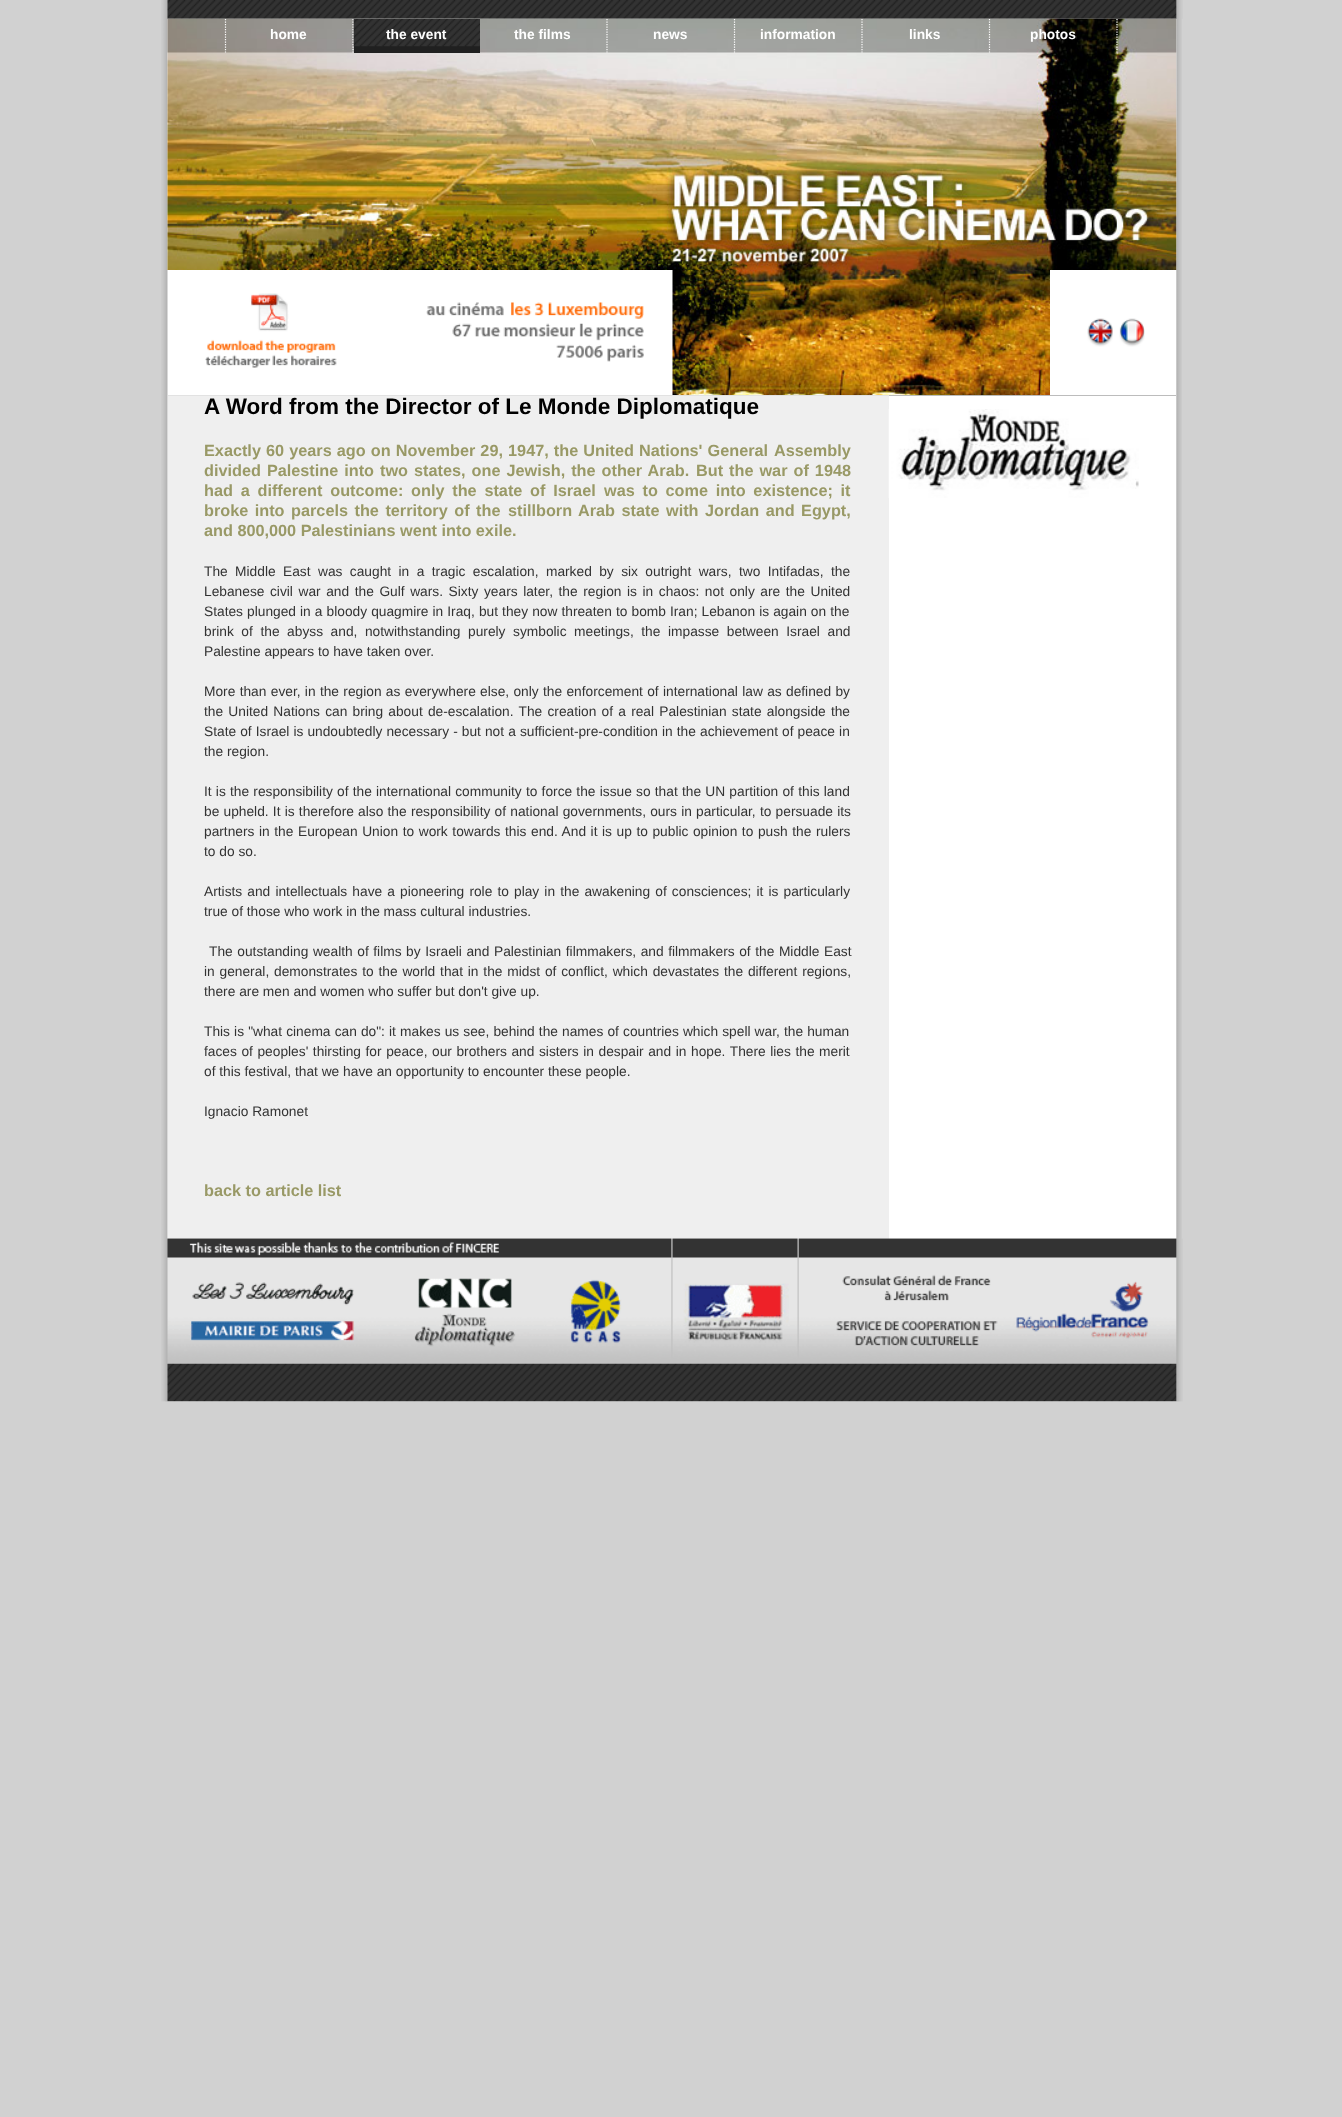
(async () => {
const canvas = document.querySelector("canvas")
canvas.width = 1342
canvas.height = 2117
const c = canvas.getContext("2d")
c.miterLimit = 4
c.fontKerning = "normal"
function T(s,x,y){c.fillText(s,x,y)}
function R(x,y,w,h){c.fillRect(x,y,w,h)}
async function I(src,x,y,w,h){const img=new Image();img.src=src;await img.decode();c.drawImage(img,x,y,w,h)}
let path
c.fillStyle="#d1d1d1"
R(0,0,1342,2117)
await I("1.png",161,0,1021,1402)
await I("2.png",167,0,1016,19)
await I("3.png",167,18,1010,252)
path = new Path2D("M225.5 19v33.5")
c.strokeStyle="#fff"
c.lineWidth=1.2
c.setLineDash([1.25,1.25])
c.stroke(path)
path = new Path2D("M353 19v33.5")
c.stroke(path)
c.font="bold 13.75px Liberation Sans"
c.fillStyle="#fff"
T("home",270,39)
c.fillStyle="#202020"
R(354,46,126,7)
await I("4.png",353,18,127,29)
c.fillStyle="#fff"
T("the event",386,39)
path = new Path2D("M607 19v33.5")
c.stroke(path)
T("the films",514,39)
path = new Path2D("M734.5 19v33.5")
c.stroke(path)
T("news",653,39)
path = new Path2D("M862 19v33.5")
c.stroke(path)
T("information",760,39)
path = new Path2D("M989.5 19v33.5")
c.stroke(path)
T("links",909,39)
path = new Path2D("M1117 19v33.5")
c.stroke(path)
T("photos",1030,39)
await I("5.png",205,293,132,75)
await I("6.png",426,302,218,60)
await I("7.png",672,270,378,125)
await I("8.png",1087,318,26,29)
await I("9.png",1119,318,26,29)
c.fillStyle="#efefef"
R(168,396,721,843)
c.fillStyle="#e2e2e2"
R(168,395,721,1)
c.font="bold 22.5px Liberation Sans"
c.fillStyle="#000"
T("A Word from the Director of Le Monde Diplomatique",204,414)
c.wordSpacing="0.6px"
c.font="bold 16.25px Liberation Sans"
c.fillStyle="#996"
T("Exactly 60 years ago on November 29, 1947, the United Nations' General",204,456)
c.wordSpacing="0px"
T("Assembly",774,456)
c.wordSpacing="1.5px"
T("divided Palestine into two states, one Jewish, the other Arab.",204,476)
T("But the war of 1948",696,476)
c.wordSpacing="3.25px"
T("had a different outcome: only the state of Israel",204,496)
T("was to come into existence; it",604,496)
c.wordSpacing="2px"
T("broke into parcels the territory of the",204,516)
T("stillborn Arab state with Jordan and Egypt,",508,516)
c.wordSpacing="0px"
T("and 800,000 Palestinians went into exile.",204,536)
c.wordSpacing="3.6px"
c.font="13.75px Liberation Sans"
c.fillStyle="#333"
T("The Middle East was caught in a tragic escalation, marked by six outright wars, two Intifadas, the",204,576)
c.wordSpacing="1.75px"
T("Lebanese civil war and the Gulf wars. Sixty years later, the region is in chaos: not only are the United",204,596)
c.wordSpacing="0.25px"
T("States plunged in a bloody quagmire in Iraq, but they now threaten to bomb Iran; Lebanon is again on the",204,616)
c.wordSpacing="3.75px"
T("brink of the abyss and, notwithstanding purely symbolic meetings, the impasse between Israel and",204,636)
c.wordSpacing="0px"
T("Palestine appears to have taken over.",204,656)
c.wordSpacing="0.5px"
T("More than ever, in the region as everywhere else, only the enforcement of international law as defined by",204,696)
c.wordSpacing="1.4px"
T("the United Nations can bring about de-escalation. The creation of a real Palestinian state alongside the",204,716)
c.wordSpacing="0.25px"
T("State of Israel is undoubtedly necessary - but not a sufficient-pre-condition in the achievement of peace in",204,736)
c.wordSpacing="0px"
T("the region.",204,756)
c.wordSpacing="0.4px"
T("It is the responsibility of the international community to force the issue so that the UN partition of this land",204,796)
T("be upheld. It is therefore also the responsibility of national governments, ours in particular, to persuade its",204,816)
c.wordSpacing="0.75px"
T("partners in the European Union to work towards this end. And it is up to public opinion to push the rulers",204,836)
c.wordSpacing="0px"
T("to do so.",204,856)
c.wordSpacing="1.3px"
T("Artists and intellectuals have a pioneering role to play in the awakening of consciences; it is particularly",204,896)
c.wordSpacing="0px"
T("true of those who work in the mass cultural industries.",204,916)
c.wordSpacing="0.75px"
T("The outstanding wealth of films by Israeli and Palestinian filmmakers, and filmmakers of the Middle East",209,956)
c.wordSpacing="1px"
T("in general, demonstrates to the world that in the midst of conflict, which devastates the different regions,",204,976)
c.wordSpacing="0px"
T("there are men and women who suffer but don't give up.",204,996)
c.wordSpacing="0.3px"
T("This is \"what cinema can do\": it makes us see, behind the names of countries which spell war, the human",204,1036)
c.wordSpacing="0.75px"
T("faces of peoples' thirsting for peace, our brothers and sisters in despair and in hope. There lies the merit",204,1056)
c.wordSpacing="0px"
T("of this festival, that we have an opportunity to encounter these people.",204,1076)
T("Ignacio Ramonet",204,1116)
c.font="bold 16.25px Liberation Sans"
c.fillStyle="#996"
T("back to article list",204,1196)
c.fillStyle="#bcbcbc"
R(889,395,287,1)
await I("10.png",888,409,251,89)
await I("11.png",167,1238,1016,126)
await I("12.png",167,1238,1010,126)
await I("13.png",165,1363,1018,39)
})()
